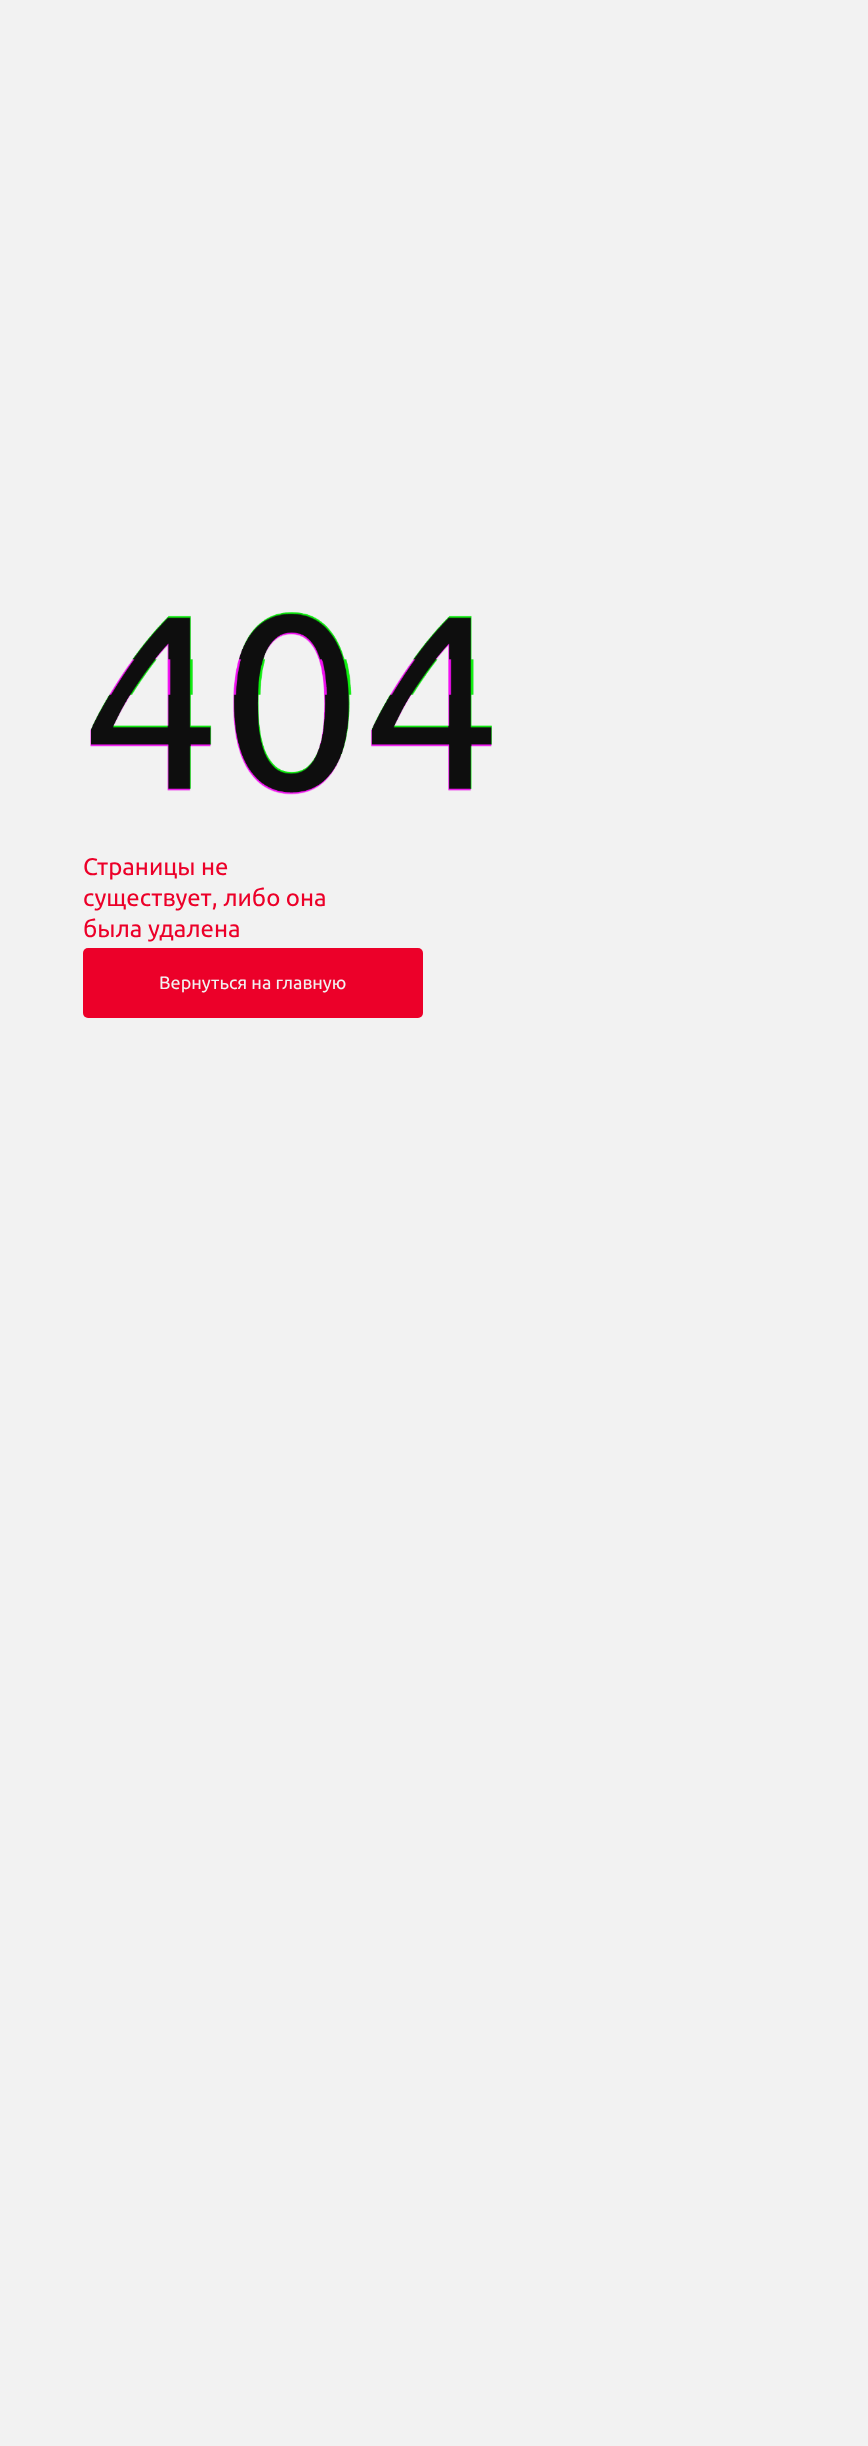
(async () => {
const canvas = document.querySelector("canvas")
canvas.width = 868
canvas.height = 2446
const c = canvas.getContext("2d")
c.miterLimit = 4
c.fontKerning = "normal"
function T(s,x,y){c.fillText(s,x,y)}
function R(x,y,w,h){c.fillRect(x,y,w,h)}
function Q(x,y,w,h,r){c.beginPath();c.roundRect(x,y,w,h,r);c.fill()}
async function I(src,x,y,w,h){const img=new Image();img.src=src;await img.decode();c.drawImage(img,x,y,w,h)}
c.fillStyle="#f2f2f2"
R(0,0,868,2446)
await I("1.png",90,612,402,183)
c.font="24px Ubuntu"
c.fillStyle="#ec0029"
T("Страницы не",83,875)
T("существует, либо она",83,906)
T("была удалена",83,937)
Q(83,948,340,70,5)
c.font="18px Ubuntu"
c.fillStyle="#f2f2f2"
T("Вернуться на главную",159,989)
})()
